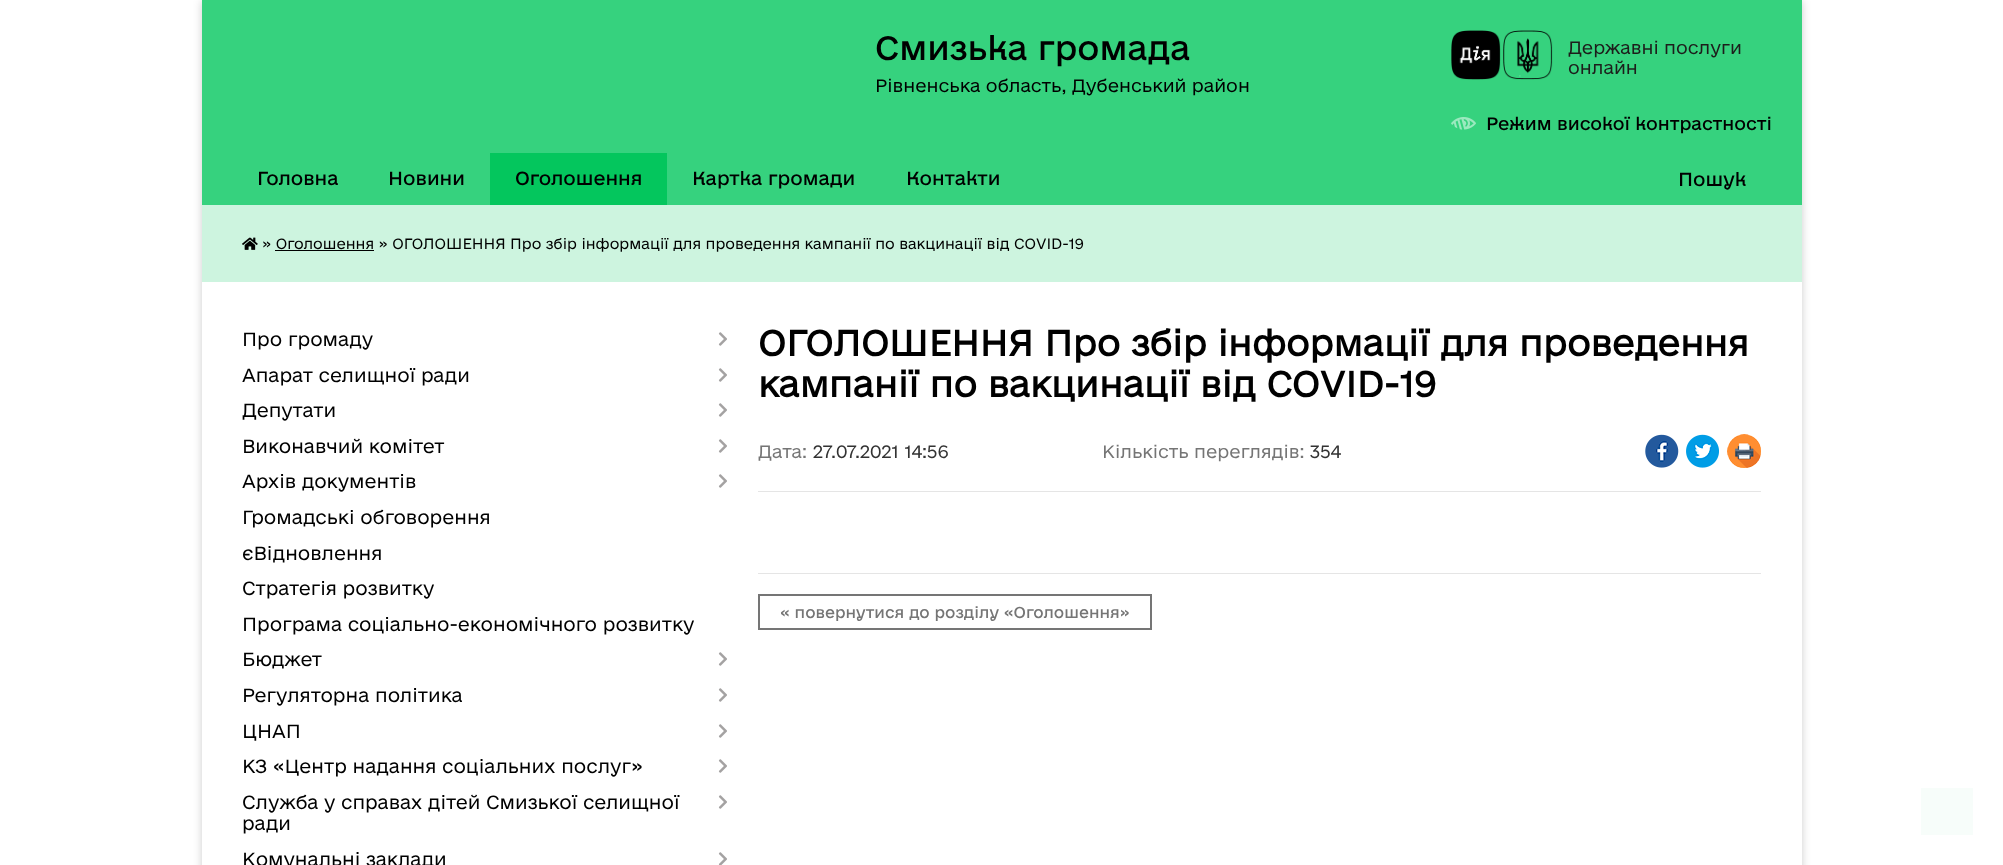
(async () => {
const canvas = document.querySelector("canvas")
canvas.width = 2003
canvas.height = 865
const c = canvas.getContext("2d")
c.miterLimit = 4
c.fontKerning = "normal"
function T(s,x,y){c.fillText(s,x,y)}
function R(x,y,w,h){c.fillRect(x,y,w,h)}
async function I(src,x,y,w,h){const img=new Image();img.src=src;await img.decode();c.drawImage(img,x,y,w,h)}
let path
c.fillStyle="#fff"
R(0,0,2003,865)
c.save()
path = new Path2D("M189 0h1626v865h-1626zm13 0h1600v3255h-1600z")
c.clip(path,"evenodd")
c.fillStyle="#00000033"
c.filter="blur(4px)"
c.beginPath()
c.rect(202,1,1600,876)
c.fill()
c.filter="none"
c.restore()
c.fillStyle="#36d27e"
R(202,0,1600,205)
c.font="32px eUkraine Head"
c.fillStyle="#000"
T("Смизька громада",875,60)
c.font="300 17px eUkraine"
T("Рівненська область, Дубенський район",875,92)
await I("1.png",1451,30,102,50)
c.fillStyle="#1d1d1b"
T("Державні послуги",1568,54)
T("онлайн",1568,74)
await I("2.png",1451,117,25,13)
c.font="17px eUkraine Head"
c.fillStyle="#000"
T("Режим високої контрастності",1486,130)
c.font="18px eUkraine Head"
T("Головна",257,185)
T("Новини",388,185)
c.fillStyle="#04c65d"
R(490,153,177,52)
c.fillStyle="#000"
T("Оголошення",515,185)
T("Картка громади",692,185)
T("Контакти",906,185)
T("Пошук",1678,186)
c.fillStyle="#cdf4df"
R(202,205,1600,77)
await I("3.png",242,237,16,13)
c.font="300 14px eUkraine"
c.fillStyle="#000"
T("» Оголошення » ОГОЛОШЕННЯ Про збір інформації для проведення кампанії по вакцинації від СОVID-19",262,249)
R(275,250,99,1)
c.font="300 18px eUkraine"
T("Про громаду",242,346)
await I("4.png",718,332,9,14)
T("Апарат селищної ради",242,382)
await I("4.png",718,368,9,14)
T("Депутати",242,417)
await I("4.png",718,403,9,14)
T("Виконавчий комітет",242,453)
await I("4.png",718,439,9,14)
T("Архів документів",242,488)
await I("4.png",718,474,9,14)
T("Громадські обговорення",242,524)
T("єВідновлення",242,560)
T("Стратегія розвитку",242,595)
T("Програма соціально-економічного розвитку",242,631)
T("Бюджет",242,666)
await I("4.png",718,652,9,14)
T("Регуляторна політика",242,702)
await I("4.png",718,688,9,14)
T("ЦНАП",242,738)
await I("4.png",718,724,9,14)
T("КЗ «Центр надання соціальних послуг»",242,773)
await I("4.png",718,759,9,14)
T("Служба у справах дітей Смизької селищної",242,809)
T("ради",242,830)
await I("4.png",718,795,9,14)
T("Комунальні заклади",242,866)
await I("5.png",718,852,9,13)
c.font="bold 34px eUkraine"
T("ОГОЛОШЕННЯ Про збір інформації для проведення",758,356)
T("кампанії по вакцинації від СОVID-19",758,397)
c.font="300 17px eUkraine"
c.fillStyle="#757575"
T("Дата:",758,458)
c.fillStyle="#333"
T("27.07.2021 14:56",813,458)
c.fillStyle="#757575"
T("Кількість переглядів:",1102,458)
c.fillStyle="#333"
T("354",1310,458)
await I("6.png",1645,434,34,34)
await I("7.png",1686,434,33,34)
await I("8.png",1727,434,34,34)
c.fillStyle="#e5e5e5"
R(758,491,1003,1)
R(758,573,1003,1)
c.strokeStyle="#757575"
c.lineWidth=2
c.strokeRect(759,595,392,34)
c.font="15px eUkraine Head"
c.fillStyle="#757575"
T("« повернутися до розділу «Оголошення»",780,618)
c.fillStyle="#f7fdfa"
R(1921,788,52,47)
})()
